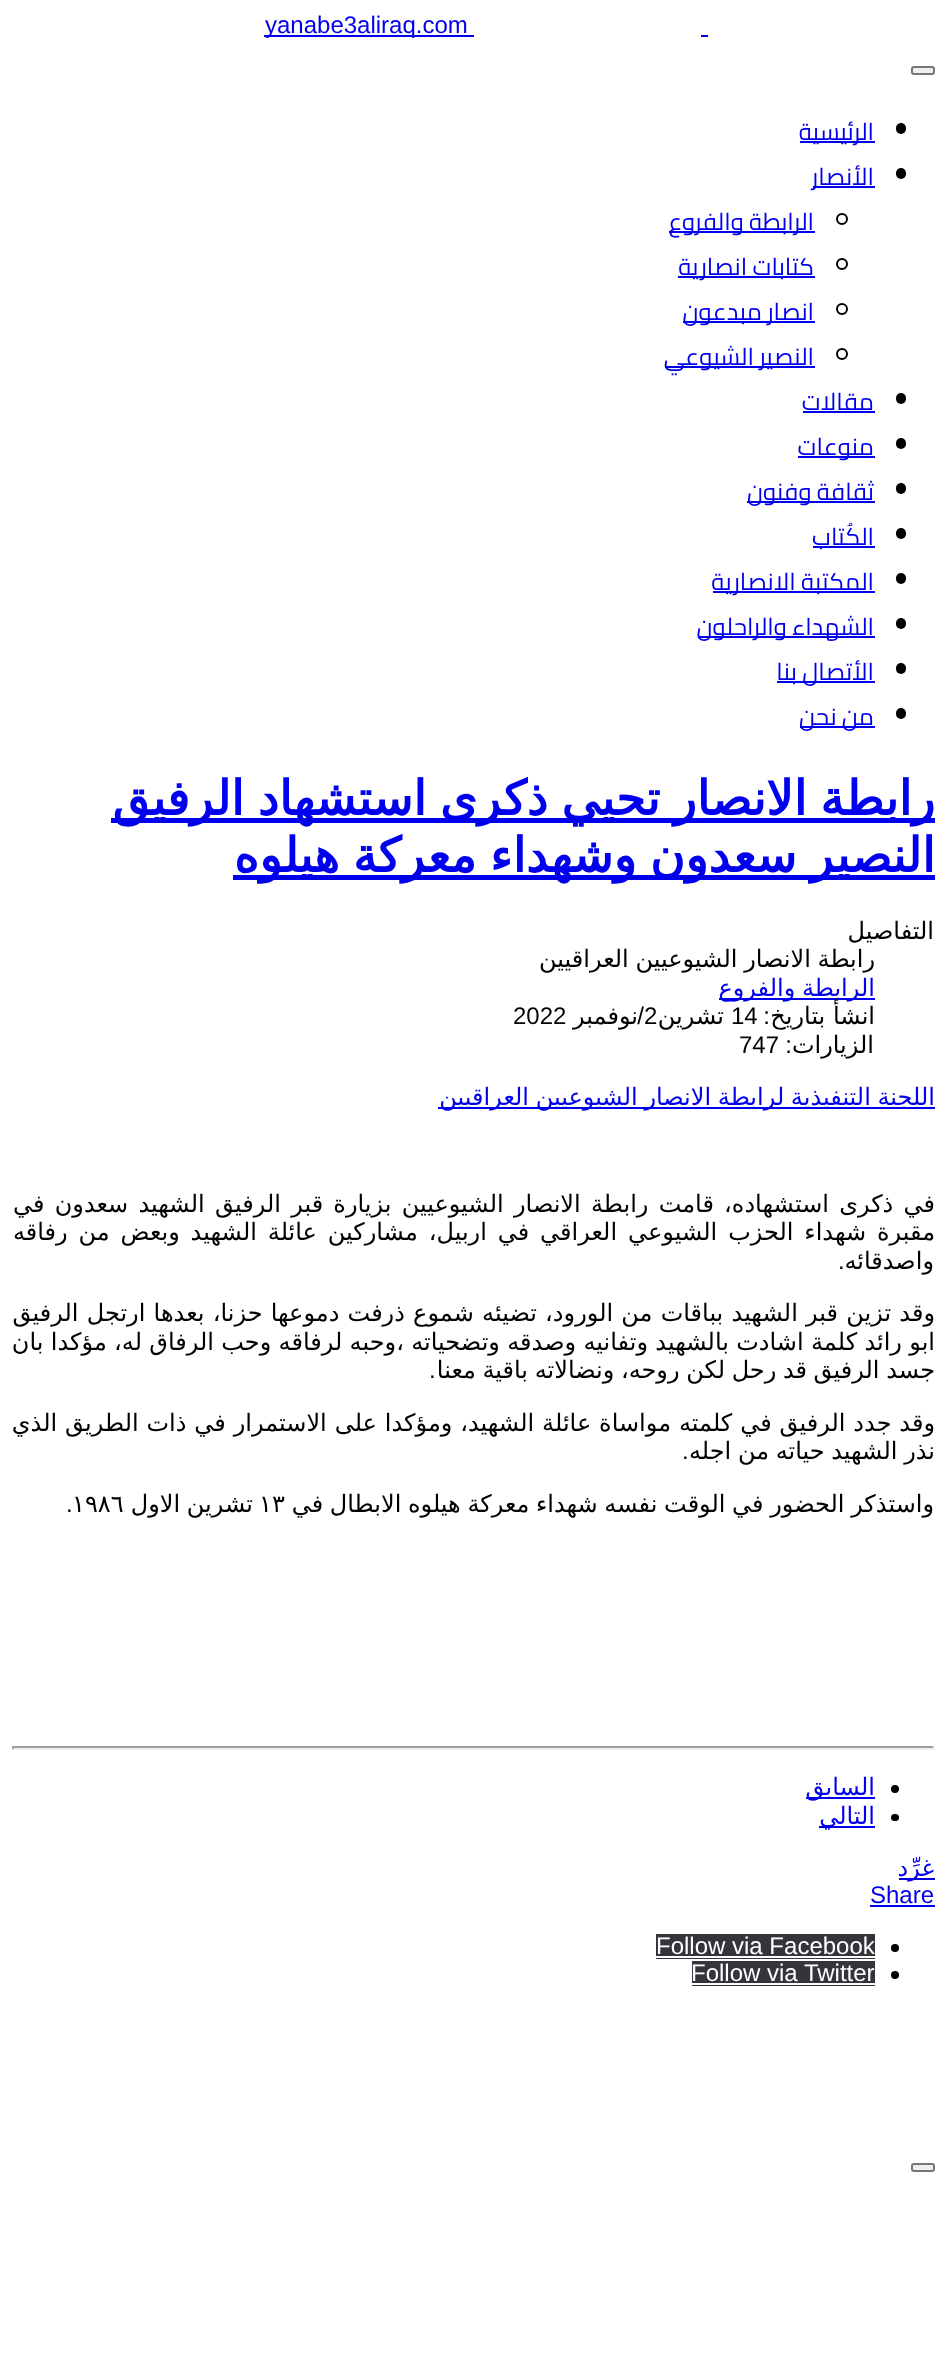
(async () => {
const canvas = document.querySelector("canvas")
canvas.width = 946
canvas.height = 2372
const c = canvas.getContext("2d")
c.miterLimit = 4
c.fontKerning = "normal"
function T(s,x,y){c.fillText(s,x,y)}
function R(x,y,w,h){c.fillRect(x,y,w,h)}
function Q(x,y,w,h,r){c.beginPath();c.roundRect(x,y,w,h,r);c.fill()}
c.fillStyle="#fff"
R(0,0,946,2372)
c.fillStyle="#00e"
R(264,35,210,2)
c.font="24px Liberation Sans"
T("yanabe3aliraq.com",265,33)
R(701,35,7,2)
c.fillStyle="#efefef"
c.beginPath()
c.roundRect(912,67,22,7,2)
c.fill()
c.strokeStyle="#767676"
c.lineWidth=2
c.stroke()
c.fillStyle="#000"
Q(896,123,10,11,5)
c.fillStyle="#00e"
R(800,141,75,2)
c.direction="rtl"
c.font="24px Cairo"
T("الرئیسية",874,140)
c.fillStyle="#000"
Q(896,168,10,11,5)
c.fillStyle="#00e"
R(813,186,62,2)
T("الأنصار",874,185)
c.beginPath()
c.arc(842,219,5,0,7)
c.strokeStyle="#000"
c.stroke()
R(669,231,146,2)
T("الرابطة والفروع",814,230)
c.beginPath()
c.arc(842,264,5,0,7)
c.stroke()
R(678,276,137,2)
T("كتابات انصارية",814,275)
c.beginPath()
c.arc(842,309,5,0,7)
c.stroke()
R(683,321,132,2)
T("انصار مبدعون",814,320)
c.beginPath()
c.arc(842,354,5,0,7)
c.stroke()
R(665,366,150,2)
T("النصیر الشیوعي",814,365)
c.fillStyle="#000"
Q(896,393,10,11,5)
c.fillStyle="#00e"
T("مقالات",874,410)
R(803,411,72,2)
c.fillStyle="#000"
Q(896,438,10,11,5)
c.fillStyle="#00e"
R(798,456,77,2)
T("منوعات",874,455)
c.fillStyle="#000"
Q(896,483,10,11,5)
c.fillStyle="#00e"
R(747,501,128,2)
T("ثقافة وفنون",874,500)
c.fillStyle="#000"
Q(896,528,10,11,5)
c.fillStyle="#00e"
R(813,546,62,2)
T("الكُتاب",874,545)
c.fillStyle="#000"
Q(896,573,10,11,5)
c.fillStyle="#00e"
R(713,591,162,2)
T("المكتبة الانصارية",874,590)
c.fillStyle="#000"
Q(896,618,10,11,5)
c.fillStyle="#00e"
R(698,636,177,2)
T("الشهداء والراحلون",874,635)
c.fillStyle="#000"
Q(896,663,10,11,5)
c.fillStyle="#00e"
R(777,681,98,2)
T("الأتصال بنا",874,680)
c.fillStyle="#000"
Q(896,708,10,11,5)
c.fillStyle="#00e"
R(800,726,75,2)
T("من نحن",874,725)
R(111,818,824,5)
c.wordSpacing="-2px"
c.font="bold 48px DejaVu Sans"
T("رابطة الانصار تحيي ذكرى استشهاد الرفيق",935,815)
R(233,875,702,5)
T("النصير سعدون وشهداء معركة هيلوه",935,872)
c.wordSpacing="0px"
c.font="24px DejaVu Sans"
c.fillStyle="#000"
T("التفاصيل",934,939)
c.wordSpacing="-1px"
T("رابطة الانصار الشيوعيين العراقيين",875,967)
c.fillStyle="#00e"
R(719,998,156,2)
T("الرابطة والفروع",875,996)
c.wordSpacing="0px"
c.fillStyle="#000"
T("انشأ بتاريخ",875,1024)
c.font="24px Liberation Sans"
T(":",770,1024)
c.direction="ltr"
T("14",731,1024)
c.direction="rtl"
c.font="24px DejaVu Sans"
T("تشرين",724,1024)
c.direction="ltr"
c.font="24px Liberation Sans"
T("2",644,1024)
c.direction="rtl"
T("/",644,1024)
c.font="24px DejaVu Sans"
T("نوفمبر",638,1024)
c.direction="ltr"
c.font="24px Liberation Sans"
T("2022",513,1024)
c.direction="rtl"
c.font="24px DejaVu Sans"
T("الزيارات",874,1053)
c.font="24px Liberation Sans"
T(":",792,1053)
c.direction="ltr"
T("747",739,1053)
c.fillStyle="#00e"
R(438,1107,497,2)
c.wordSpacing="-1px"
c.direction="rtl"
c.font="24px DejaVu Sans"
T("اللجنة التنفيذية لرابطة الانصار الشيوعيين العراقيين",935,1105)
c.wordSpacing="2.6px"
c.fillStyle="#000"
T("في ذكرى استشهاده، قامت رابطة الانصار الشيوعيين بزيارة قبر الرفيق الشهيد سعدون في",935,1212)
c.wordSpacing="3.25px"
T("مقبرة شهداء الحزب الشيوعي العراقي في اربيل، مشاركين عائلة الشهيد وبعض من رفاقه",935,1240)
c.wordSpacing="0px"
T("واصدقائه",934,1269)
c.direction="ltr"
c.font="24px Liberation Sans"
T(".",838,1269)
c.wordSpacing="0.6px"
c.direction="rtl"
c.font="24px DejaVu Sans"
T("وقد تزين قبر الشهيد بباقات من الورود، تضيئه شموع ذرفت دموعها حزنا، بعدها ارتجل الرفيق",935,1321)
c.wordSpacing="-0.3px"
T("ابو رائد كلمة اشادت بالشهيد وتفانيه وصدقه وتضحياته ،وحبه لرفاقه وحب الرفاق له، مؤكدا بان",935,1350)
c.wordSpacing="-1px"
T("جسد الرفيق قد رحل لكن روحه، ونضالاته باقية معنا",935,1378)
c.wordSpacing="0px"
c.direction="ltr"
c.font="24px Liberation Sans"
T(".",429,1378)
c.wordSpacing="0.25px"
c.direction="rtl"
c.font="24px DejaVu Sans"
T("وقد جدد الرفيق في كلمته مواساة عائلة الشهيد، ومؤكدا على الاستمرار في ذات الطريق الذي",935,1431)
c.wordSpacing="-1px"
T("نذر الشهيد حياته من اجله",935,1459)
c.wordSpacing="0px"
c.direction="ltr"
c.font="24px Liberation Sans"
T(".",682,1459)
c.wordSpacing="-1px"
c.direction="rtl"
c.font="24px DejaVu Sans"
T("واستذكر الحضور في الوقت نفسه شهداء معركة هيلوه الابطال في",934,1512)
c.wordSpacing="0px"
c.direction="ltr"
T("١٣",259,1512)
c.wordSpacing="-1px"
c.direction="rtl"
T("تشرين الاول",253,1512)
c.wordSpacing="0px"
c.direction="ltr"
T("١٩٨٦",72,1512)
c.font="24px Liberation Sans"
T(".",66,1512)
c.fillStyle="#9f9f9f"
R(12,1746,923,2)
c.fillStyle="#eee"
R(933,1746,2,3)
R(12,1748,923,2)
c.fillStyle="#9f9f9f"
R(12,1746,2,3)
c.fillStyle="#000"
c.beginPath()
c.arc(895,1789,4,0,7)
c.fill()
c.fillStyle="#00e"
R(806,1797,69,2)
c.direction="rtl"
c.font="24px DejaVu Sans"
T("السابق",875,1795)
c.fillStyle="#000"
Q(891,1814,8,7,3.5)
c.fillStyle="#00e"
R(819,1826,56,2)
T("التالي",875,1824)
R(899,1878,36,2)
T("غرِّد",934,1876)
c.direction="ltr"
c.font="24px Liberation Sans"
T("Share",870,1903)
R(870,1905,65,2)
c.fillStyle="#000"
c.beginPath()
c.arc(895,1948,4,0,7)
c.fill()
c.fillStyle="#33353b"
R(656,1934,219,25)
c.fillStyle="#fff"
T("Follow via Facebook",656,1954)
R(656,1956,219,2)
c.fillStyle="#000"
c.beginPath()
c.arc(895,1975,4,0,7)
c.fill()
c.fillStyle="#33353b"
R(692,1961,183,25)
c.fillStyle="#fff"
T("Follow via Twitter",691,1981)
R(692,1983,183,2)
c.fillStyle="#efefef"
c.beginPath()
c.roundRect(912,2164,22,7,2)
c.fill()
c.strokeStyle="#767676"
c.stroke()
})()
